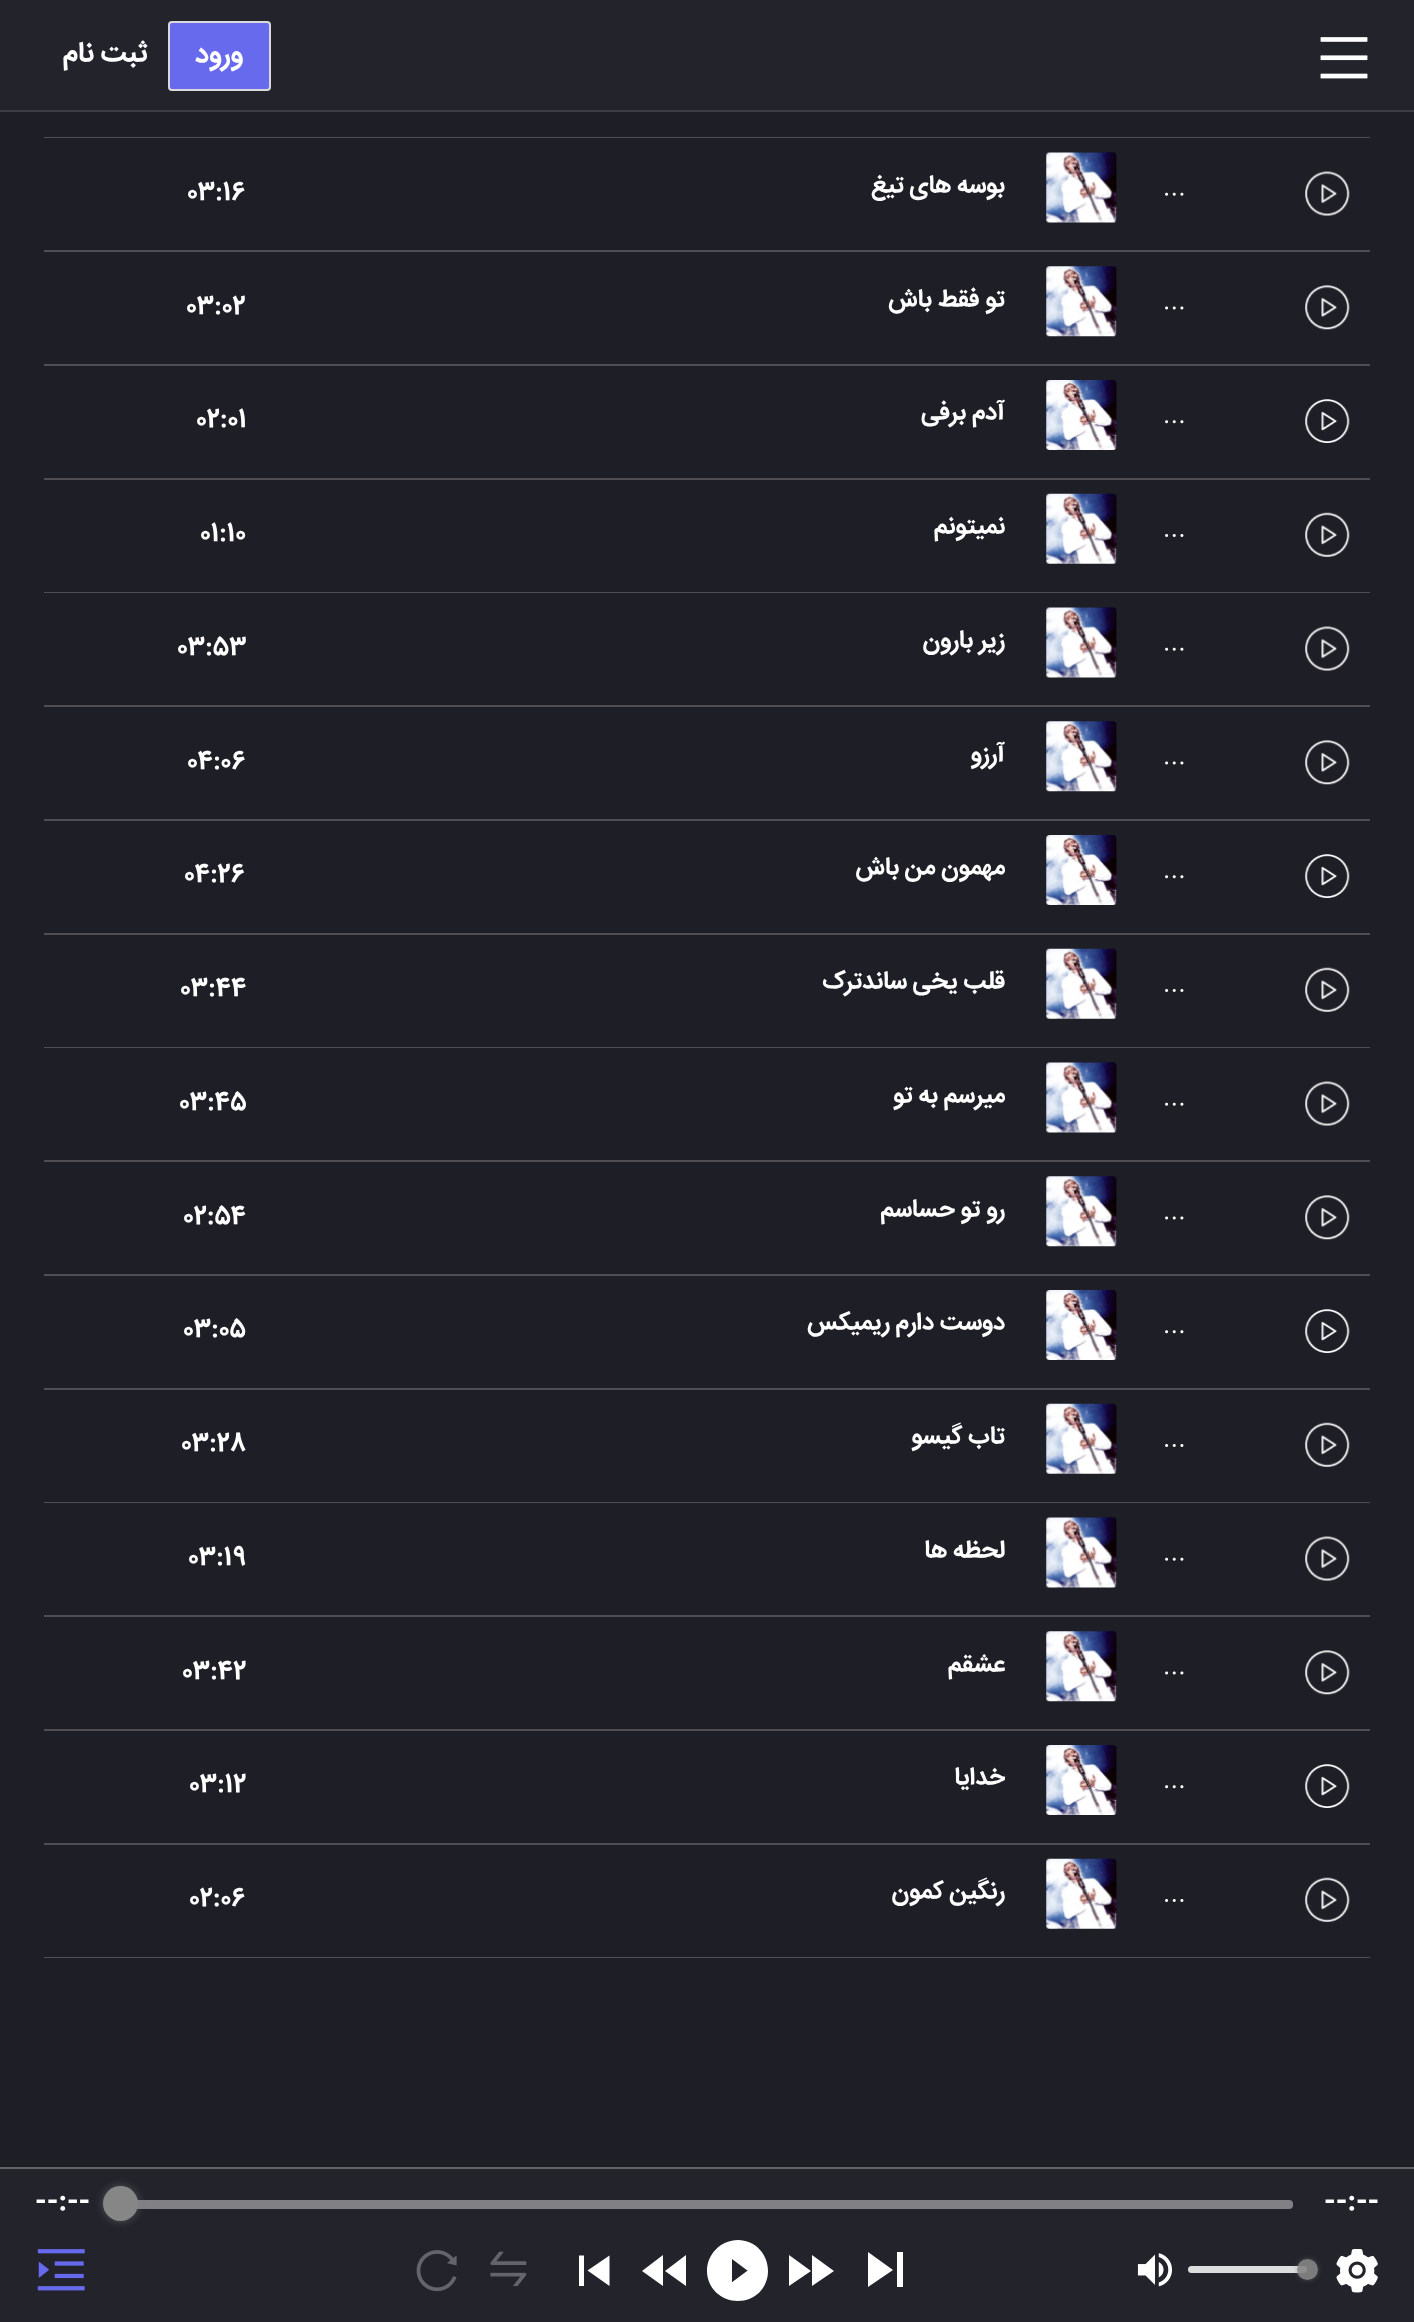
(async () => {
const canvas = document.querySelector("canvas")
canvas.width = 1414
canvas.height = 2322
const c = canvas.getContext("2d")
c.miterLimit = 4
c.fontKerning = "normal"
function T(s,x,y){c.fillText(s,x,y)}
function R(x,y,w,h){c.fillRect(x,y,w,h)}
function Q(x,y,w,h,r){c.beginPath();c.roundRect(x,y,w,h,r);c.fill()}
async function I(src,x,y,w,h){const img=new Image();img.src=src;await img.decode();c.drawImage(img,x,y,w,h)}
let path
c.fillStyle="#1e1e26"
R(0,0,1414,2322)
c.fillStyle="#23232c"
R(0,0,1414,110)
c.fillStyle="#3d3d45"
R(0,110,1414,2)
await I("1.png",1320,37,48,42)
c.fillStyle="#686aee"
c.beginPath()
c.roundRect(169,22,101,68,3)
c.fill()
c.strokeStyle="#d9d9d9"
c.lineWidth=2
c.stroke()
c.direction="rtl"
c.font="bold 28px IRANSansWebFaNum"
c.fillStyle="#fff"
T("ورود",243,62)
T("ثبت نام",148,61)
c.fillStyle="#4e4e54"
R(44,137,1326,1)
R(44,250,1326,2)
await I("2.png",1305,171,45,45)
await I("3.png",1165,192,19,4)
c.fillStyle="#18181f"
Q(1047,152,70,70,5)
await I("4.png",1046,152,71,71)
c.font="bold 24.5px IRANSansWebFaNum"
c.fillStyle="#fff"
T("بوسه های تیغ",1005,192)
c.direction="ltr"
T("03:16",187,199)
c.fillStyle="#4e4e54"
R(44,364,1326,2)
await I("5.png",1305,285,45,45)
await I("6.png",1165,306,19,4)
c.fillStyle="#18181f"
Q(1047,266,70,70,5)
await I("7.png",1046,266,71,71)
c.direction="rtl"
c.fillStyle="#fff"
T("تو فقط باش",1005,306)
c.direction="ltr"
T("03:02",186,313)
c.fillStyle="#4e4e54"
R(44,478,1326,2)
await I("8.png",1305,399,45,44)
await I("9.png",1165,420,19,4)
c.fillStyle="#18181f"
Q(1047,380,70,70,5)
await I("10.png",1046,380,71,70)
c.direction="rtl"
c.fillStyle="#fff"
T("آدم برفی",1005,419)
c.direction="ltr"
T("02:01",196,426)
c.fillStyle="#4e4e54"
R(44,592,1326,1)
await I("11.png",1305,512,45,45)
await I("12.png",1165,534,19,3)
c.fillStyle="#18181f"
Q(1047,494,70,70,5)
await I("13.png",1046,493,71,71)
c.direction="rtl"
c.fillStyle="#fff"
T("نمیتونم",1005,533)
c.direction="ltr"
T("01:10",200,540)
c.fillStyle="#4e4e54"
R(44,705,1326,2)
await I("2.png",1305,626,45,45)
await I("3.png",1165,647,19,4)
c.fillStyle="#18181f"
Q(1047,607,70,70,5)
await I("4.png",1046,607,71,71)
c.direction="rtl"
c.fillStyle="#fff"
T("زیر بارون",1005,647)
c.direction="ltr"
T("03:53",177,654)
c.fillStyle="#4e4e54"
R(44,819,1326,2)
await I("5.png",1305,740,45,45)
await I("6.png",1165,761,19,4)
c.fillStyle="#18181f"
Q(1047,721,70,70,5)
await I("7.png",1046,721,71,71)
c.direction="rtl"
c.fillStyle="#fff"
T("آرزو",1005,761)
c.direction="ltr"
T("04:06",187,768)
c.fillStyle="#4e4e54"
R(44,933,1326,2)
await I("8.png",1305,854,45,44)
await I("9.png",1165,875,19,4)
c.fillStyle="#18181f"
Q(1047,835,70,70,5)
await I("10.png",1046,835,71,70)
c.direction="rtl"
c.fillStyle="#fff"
T("مهمون من باش",1005,874)
c.direction="ltr"
T("04:26",184,881)
c.fillStyle="#4e4e54"
R(44,1047,1326,1)
await I("11.png",1305,967,45,45)
await I("12.png",1165,989,19,3)
c.fillStyle="#18181f"
Q(1047,949,70,70,5)
await I("13.png",1046,948,71,71)
c.direction="rtl"
c.fillStyle="#fff"
T("قلب یخی ساندترک",1005,988)
c.direction="ltr"
T("03:44",180,995)
c.fillStyle="#4e4e54"
R(44,1160,1326,2)
await I("2.png",1305,1081,45,45)
await I("3.png",1165,1102,19,4)
c.fillStyle="#18181f"
Q(1047,1062,70,70,5)
await I("4.png",1046,1062,71,71)
c.direction="rtl"
c.fillStyle="#fff"
T("میرسم به تو",1005,1102)
c.direction="ltr"
T("03:45",179,1109)
c.fillStyle="#4e4e54"
R(44,1274,1326,2)
await I("5.png",1305,1195,45,45)
await I("6.png",1165,1216,19,4)
c.fillStyle="#18181f"
Q(1047,1176,70,70,5)
await I("7.png",1046,1176,71,71)
c.direction="rtl"
c.fillStyle="#fff"
T("رو تو حساسم",1005,1216)
c.direction="ltr"
T("02:54",183,1223)
c.fillStyle="#4e4e54"
R(44,1388,1326,2)
await I("8.png",1305,1309,45,44)
await I("9.png",1165,1330,19,4)
c.fillStyle="#18181f"
Q(1047,1290,70,70,5)
await I("10.png",1046,1290,71,70)
c.direction="rtl"
c.fillStyle="#fff"
T("دوست دارم ریمیکس",1005,1329)
c.direction="ltr"
T("03:05",183,1336)
c.fillStyle="#4e4e54"
R(44,1502,1326,1)
await I("11.png",1305,1422,45,45)
await I("12.png",1165,1444,19,3)
c.fillStyle="#18181f"
Q(1047,1404,70,70,5)
await I("13.png",1046,1403,71,71)
c.direction="rtl"
c.fillStyle="#fff"
T("تاب گیسو",1005,1443)
c.direction="ltr"
T("03:28",181,1450)
c.fillStyle="#4e4e54"
R(44,1615,1326,2)
await I("2.png",1305,1536,45,45)
await I("3.png",1165,1557,19,4)
c.fillStyle="#18181f"
Q(1047,1517,70,70,5)
await I("4.png",1046,1517,71,71)
c.direction="rtl"
c.fillStyle="#fff"
T("لحظه ها",1005,1557)
c.direction="ltr"
T("03:19",188,1564)
c.fillStyle="#4e4e54"
R(44,1729,1326,2)
await I("5.png",1305,1650,45,45)
await I("6.png",1165,1671,19,4)
c.fillStyle="#18181f"
Q(1047,1631,70,70,5)
await I("7.png",1046,1631,71,71)
c.direction="rtl"
c.fillStyle="#fff"
T("عشقم",1005,1671)
c.direction="ltr"
T("03:42",182,1678)
c.fillStyle="#4e4e54"
R(44,1843,1326,2)
await I("8.png",1305,1764,45,44)
await I("9.png",1165,1785,19,4)
c.fillStyle="#18181f"
Q(1047,1745,70,70,5)
await I("10.png",1046,1745,71,70)
c.direction="rtl"
c.fillStyle="#fff"
T("خدایا",1005,1784)
c.direction="ltr"
T("03:12",189,1791)
c.fillStyle="#4e4e54"
R(44,1957,1326,1)
await I("11.png",1305,1877,45,45)
await I("12.png",1165,1899,19,3)
c.fillStyle="#18181f"
Q(1047,1859,70,70,5)
await I("13.png",1046,1858,71,71)
c.direction="rtl"
c.fillStyle="#fff"
T("رنگین کمون",1005,1898)
c.direction="ltr"
T("02:06",189,1905)
c.fillStyle="#23232c"
R(0,2169,1414,153)
c.fillStyle="#636363"
R(0,2167,1414,2)
c.font="bold 28px IRANSansWebFaNum"
c.fillStyle="#fff"
T("--:--",1324,2209)
c.fillStyle="#818185"
Q(121,2200,1172,9,4)
c.fillStyle="#87878780"
c.filter="blur(4.5px)"
c.beginPath()
c.roundRect(103,2186,35,35,17.5)
c.fill()
c.filter="none"
c.fillStyle="#868686"
c.beginPath()
c.arc(120.5,2203.5,17.5,0,7)
c.fill()
c.fillStyle="#fff"
T("--:--",35,2209)
await I("14.png",1336,2249,42,44)
c.fillStyle="#ddd"
Q(1188,2266,119,7,3.5)
c.save()
path = new Path2D("M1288 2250h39v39h-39zm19.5 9c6 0 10.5 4.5 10.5 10.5c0 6-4.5 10.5-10.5 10.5c-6 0-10.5-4.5-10.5-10.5c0-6 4.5-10.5 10.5-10.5z")
c.clip(path,"evenodd")
c.fillStyle="#87878773"
c.filter="blur(2.5px)"
c.beginPath()
c.roundRect(1297,2259,21,21,10.5)
c.fill()
c.filter="none"
c.restore()
c.fillStyle="#868686e6"
c.beginPath()
c.arc(1307.5,2269.5,10.5,0,7)
c.fill()
await I("15.png",1137,2253,36,34)
c.fillStyle="#fff"
path = new Path2D("M897 2287h6v-35h-6m-29 35l25-17l-25-18z")
c.fill(path)
path = new Path2D("M812 2255v31l22-15m-45 15l22-15l-22-16z")
c.fill(path)
path = new Path2D("M738 2240c-17 0-31 14-31 31c0 17 14 30 31 30c17 0 30-13 30-30c0-17-13-31-30-31zm9 31l-12 9c-4 3-3 3-3-2v-19l16 12z")
c.fill(path)
path = new Path2D("M665 2271l21 15v-31m-23 31v-31l-21 16z")
c.fill(path)
path = new Path2D("M579 2286v-30.5h5v30.5h-5m8.5-15.5l22-15v30.5z")
c.fill(path)
await I("16.png",490,2251,37,35)
await I("17.png",416,2250,41,42)
await I("18.png",37,2249,48,42)
})()
